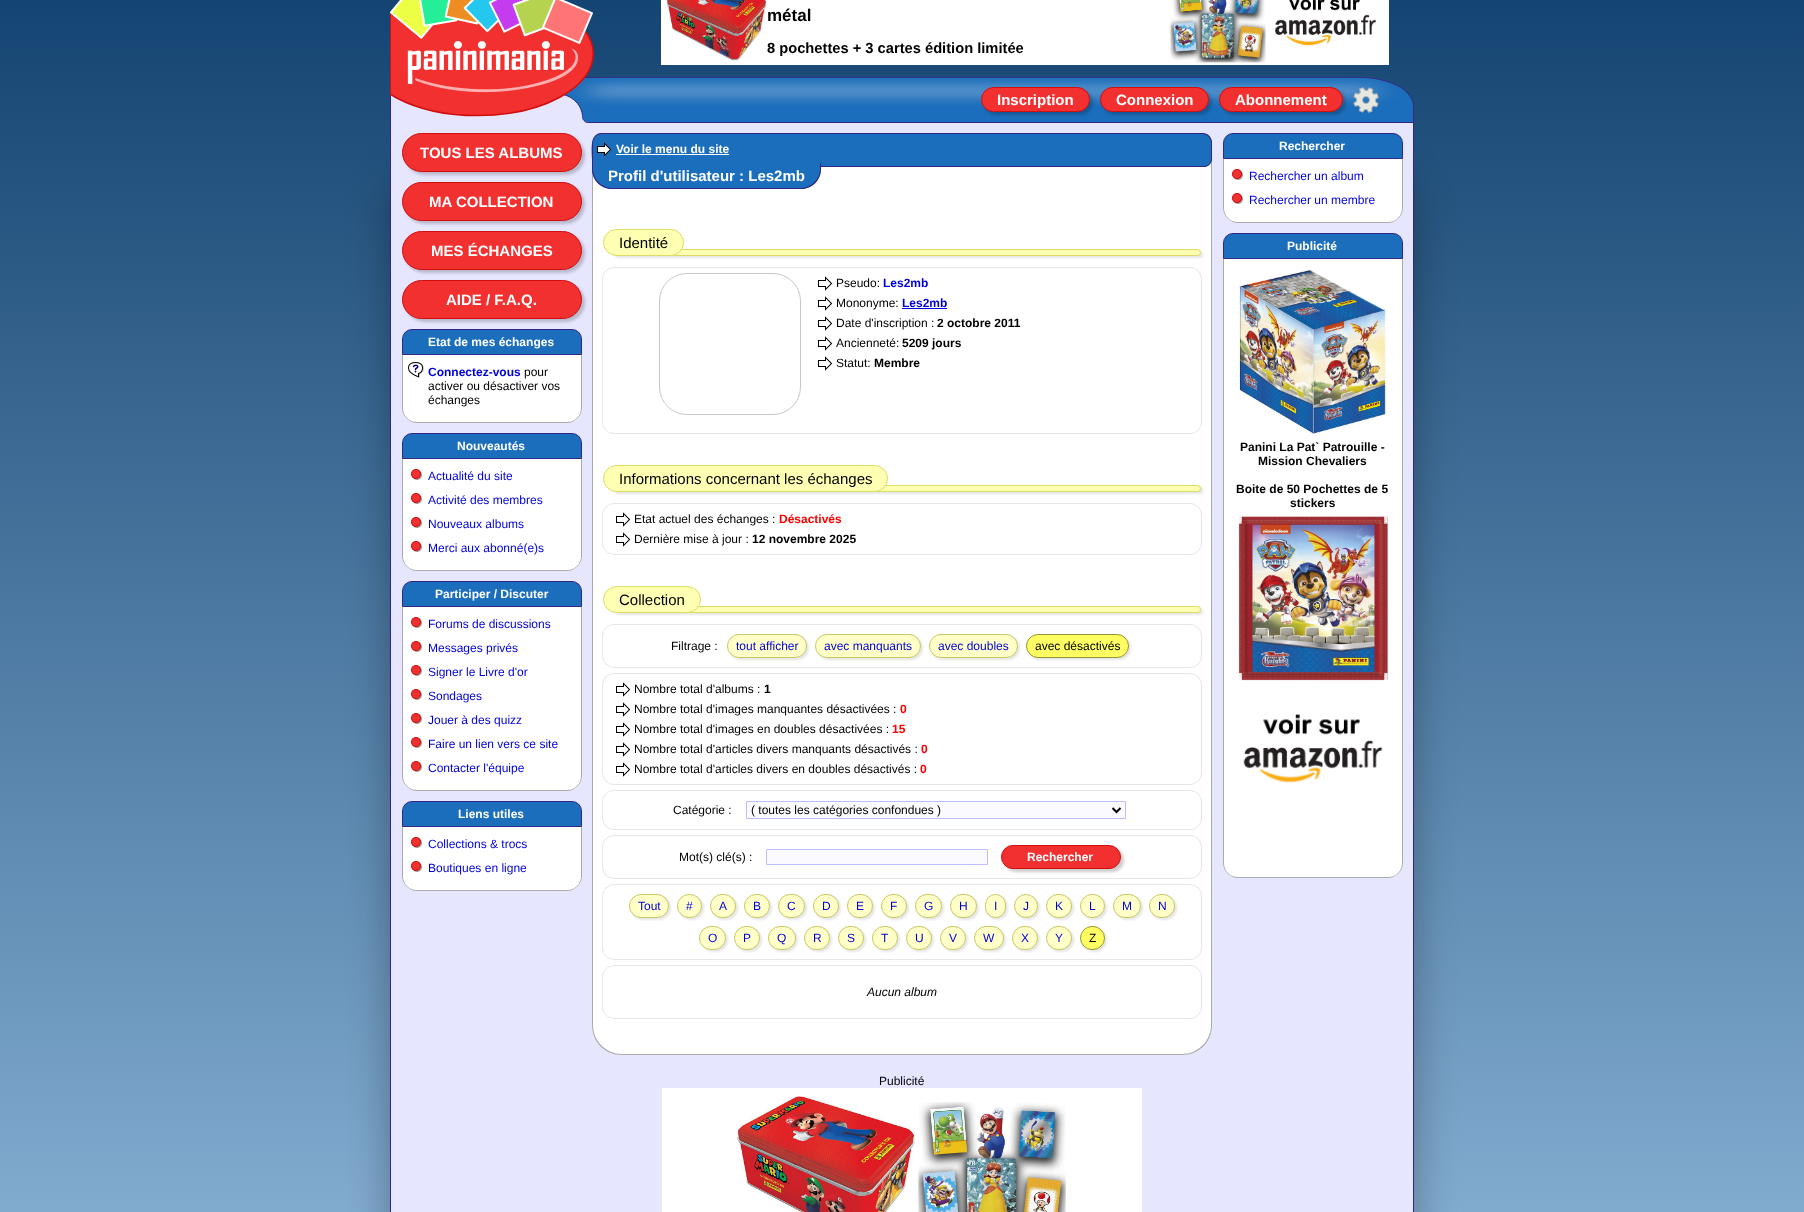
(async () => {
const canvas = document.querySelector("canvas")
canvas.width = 1804
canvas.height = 1212
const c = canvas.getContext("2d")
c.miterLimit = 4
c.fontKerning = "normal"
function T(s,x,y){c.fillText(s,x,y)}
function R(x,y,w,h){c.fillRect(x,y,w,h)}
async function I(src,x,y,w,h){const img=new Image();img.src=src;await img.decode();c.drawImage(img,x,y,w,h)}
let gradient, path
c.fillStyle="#fff"
R(0,0,1804,1212)
gradient = c.createLinearGradient(902,-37,902,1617)
gradient.addColorStop(0,"#11416f")
gradient.addColorStop(.91,"#98c0e2")
c.fillStyle = gradient
R(0,0,1804,1212)
await I("13.png",390,0,1024,123)
await I("15.png",1353,87,26,26)
c.fillStyle="#0000004d"
c.filter="blur(20px)"
c.beginPath()
c.roundRect(390,173,1024,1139,40)
c.fill()
c.filter="none"
c.fillStyle="#e6e6ff"
R(391,123,1022,1089)
c.fillStyle="#322787"
path = new Path2D("M390 123h1024v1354c0 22-18 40-40 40h-944c-22 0-40-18-40-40zm1 0h1022v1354c0 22-17 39-39 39h-944c-22 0-39-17-39-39z")
c.fill(path,"evenodd")
c.fillStyle="#fff"
R(661,0,728,65)
await I("1.png",666,0,101,61)
c.font="bold 17px Liberation Sans"
c.fillStyle="#000"
T("métal",767,21)
c.font="bold 14.7px Liberation Sans"
T("8 pochettes + 3 cartes édition limitée",767,53)
await I("2.png",1170,0,96,63)
await I("3.png",1275,0,101,46)
c.fillStyle="#00000033"
c.filter="blur(1.5px)"
c.beginPath()
c.roundRect(405,136,180,39,19.5)
c.fill()
c.filter="none"
c.fillStyle="#f23030"
c.beginPath()
c.roundRect(402.5,133.5,179,38,19)
c.fill()
c.strokeStyle="#d00f0f"
c.stroke()
c.font="bold 15px Liberation Sans"
c.fillStyle="#fff"
T("TOUS LES ALBUMS",420,158)
c.fillStyle="#00000033"
c.filter="blur(1.5px)"
c.beginPath()
c.roundRect(405,185,180,39,19.5)
c.fill()
c.filter="none"
c.fillStyle="#f23030"
c.beginPath()
c.roundRect(402.5,182.5,179,38,19)
c.fill()
c.stroke()
c.fillStyle="#fff"
T("MA COLLECTION",429,207)
c.fillStyle="#00000033"
c.filter="blur(1.5px)"
c.beginPath()
c.roundRect(405,234,180,39,19.5)
c.fill()
c.filter="none"
c.fillStyle="#f23030"
c.beginPath()
c.roundRect(402.5,231.5,179,38,19)
c.fill()
c.stroke()
c.fillStyle="#fff"
T("MES ÉCHANGES",431,256)
c.fillStyle="#00000033"
c.filter="blur(1.5px)"
c.beginPath()
c.roundRect(405,283,180,39,19.5)
c.fill()
c.filter="none"
c.fillStyle="#f23030"
c.beginPath()
c.roundRect(402.5,280.5,179,38,19)
c.fill()
c.stroke()
c.fillStyle="#fff"
T("AIDE / F.A.Q.",446,305)
c.fillStyle="#1b6ebb"
c.beginPath()
c.roundRect(402.5,329.5,179,25,[9.5,9.5,0,0])
c.fill()
c.strokeStyle="#322787"
c.stroke()
c.font="bold 12px Liberation Sans"
c.fillStyle="#fff"
T("Etat de mes échanges",428,346)
c.beginPath()
c.roundRect(402,355,180,68,[0,0,15,15])
c.fill()
c.fillStyle="#aaa"
path = new Path2D("M402 355h180v53c0 8-7 15-15 15h-150c-8 0-15-7-15-15zm1 0h178v53c0 8-6 14-14 14h-150c-8 0-14-6-14-14z")
c.fill(path,"evenodd")
await I("4.png",408,362,16,16)
c.fillStyle="#0000dc"
T("Connectez-vous",428,376)
c.font="12px Liberation Sans"
c.fillStyle="#000"
T("pour",524,376)
T("activer ou désactiver vos",428,390)
T("échanges",428,404)
c.fillStyle="#1b6ebb"
c.beginPath()
c.roundRect(402.5,433.5,179,25,[9.5,9.5,0,0])
c.fill()
c.stroke()
c.font="bold 12px Liberation Sans"
c.fillStyle="#fff"
T("Nouveautés",457,450)
c.beginPath()
c.roundRect(402,459,180,112,[0,0,15,15])
c.fill()
c.fillStyle="#aaa"
path = new Path2D("M402 459h180v97c0 8-7 15-15 15h-150c-8 0-15-7-15-15zm1 0h178v97c0 8-6 14-14 14h-150c-8 0-14-6-14-14z")
c.fill(path,"evenodd")
await I("5.png",411,469,11,11)
c.font="12px Liberation Sans"
c.fillStyle="#0000dc"
T("Actualité du site",428,480)
await I("5.png",411,493,11,11)
T("Activité des membres",428,504)
await I("5.png",411,517,11,11)
T("Nouveaux albums",428,528)
await I("5.png",411,541,11,11)
T("Merci aux abonné(e)s",428,552)
c.fillStyle="#1b6ebb"
c.beginPath()
c.roundRect(402.5,581.5,179,25,[9.5,9.5,0,0])
c.fill()
c.stroke()
c.font="bold 12px Liberation Sans"
c.fillStyle="#fff"
T("Participer / Discuter",435,598)
c.beginPath()
c.roundRect(402,607,180,184,[0,0,15,15])
c.fill()
c.fillStyle="#aaa"
path = new Path2D("M402 607h180v169c0 8-7 15-15 15h-150c-8 0-15-7-15-15zm1 0h178v169c0 8-6 14-14 14h-150c-8 0-14-6-14-14z")
c.fill(path,"evenodd")
await I("5.png",411,617,11,11)
c.font="12px Liberation Sans"
c.fillStyle="#0000dc"
T("Forums de discussions",428,628)
await I("5.png",411,641,11,11)
T("Messages privés",428,652)
await I("5.png",411,665,11,11)
T("Signer le Livre d'or",428,676)
await I("5.png",411,689,11,11)
T("Sondages",428,700)
await I("5.png",411,713,11,11)
T("Jouer à des quizz",428,724)
await I("5.png",411,737,11,11)
T("Faire un lien vers ce site",428,748)
await I("5.png",411,761,11,11)
T("Contacter l'équipe",428,772)
c.fillStyle="#1b6ebb"
c.beginPath()
c.roundRect(402.5,801.5,179,25,[9.5,9.5,0,0])
c.fill()
c.stroke()
c.font="bold 12px Liberation Sans"
c.fillStyle="#fff"
T("Liens utiles",458,818)
c.beginPath()
c.roundRect(402,827,180,64,[0,0,15,15])
c.fill()
c.fillStyle="#aaa"
path = new Path2D("M402 827h180v49c0 8-7 15-15 15h-150c-8 0-15-7-15-15zm1 0h178v49c0 8-6 14-14 14h-150c-8 0-14-6-14-14z")
c.fill(path,"evenodd")
await I("5.png",411,837,11,11)
c.font="12px Liberation Sans"
c.fillStyle="#0000dc"
T("Collections & trocs",428,848)
await I("5.png",411,861,11,11)
T("Boutiques en ligne",428,872)
c.fillStyle="#1b6ebb"
c.beginPath()
c.roundRect(592,133,620,26,[10,10,0,0])
c.fill()
c.fillStyle="#322787"
path = new Path2D("M602 133h600c6 0 10 4 10 10v16h-620c0-8-3-26 10-26zm0 1h600c5 0 9 4 9 9v16h-618v-16c0-5 4-9 9-9z")
c.fill(path,"evenodd")
await I("6.png",597,142,15,14)
c.font="bold 12px Liberation Sans"
c.fillStyle="#fff"
T("Voir le menu du site",616,153)
R(616,154,113,1)
R(593,162,618,27)
c.fillStyle="#aaa"
R(1211,159,1,30)
R(592,169,1,20)
c.fillStyle="#1b6ebb"
c.beginPath()
c.roundRect(592,159,620,8,[0,0,8,0])
c.fill()
c.fillStyle="#322787"
path = new Path2D("M592 159h620c0 4-4 8-8 8h-612zm1 0h618c0 4-3 7-7 7h-611z")
c.fill(path,"evenodd")
c.fillStyle="#1b6ebb"
c.beginPath()
c.roundRect(592,163,229,26,[0,0,20,20])
c.fill()
c.fillStyle="#322787"
path = new Path2D("M592 163h229v6c0 11-9 20-20 20h-189c-11 0-20-9-20-20zm1 0h227v6c0 10-9 19-19 19h-189c-10 0-19-9-19-19z")
c.fill(path,"evenodd")
c.font="bold 15px Liberation Sans"
c.fillStyle="#fff"
T("Profil d'utilisateur : Les2mb",608,181)
c.beginPath()
c.roundRect(592,189,620,866,[0,0,30,30])
c.fill()
c.fillStyle="#aaa"
path = new Path2D("M592 189h620v836c0 17-13 30-30 30h-560c-17 0-30-13-30-30zm1 0h618v836c0 16-13 29-29 29h-560c-16 0-29-13-29-29z")
c.fill(path,"evenodd")
c.fillStyle="#0000001a"
c.filter="blur(1px)"
c.beginPath()
c.roundRect(615,251,588,7,3.5)
c.fill()
c.filter="none"
c.fillStyle="#ffffb4"
c.beginPath()
c.roundRect(613.5,249.5,587,6,3)
c.fill()
c.strokeStyle="#dcdc64"
c.stroke()
c.beginPath()
c.roundRect(603.5,229.5,80,26,13)
c.fill()
c.stroke()
c.font="15px Liberation Sans"
c.fillStyle="#000"
T("Identité",619,248)
c.beginPath()
c.roundRect(602.5,267.5,599,166,11.5)
c.strokeStyle="#e6e6e6"
c.stroke()
c.beginPath()
c.roundRect(659.5,273.5,141,141,27.5)
c.strokeStyle="#c8c8c8"
c.stroke()
await I("7.png",818,276,15,15)
c.font="12px Liberation Sans"
T("Pseudo:",836,287)
c.font="bold 12px Liberation Sans"
c.fillStyle="#0000dc"
T("Les2mb",883,287)
await I("7.png",818,296,15,15)
c.font="12px Liberation Sans"
c.fillStyle="#000"
T("Mononyme:",836,307)
c.font="bold 12px Liberation Sans"
c.fillStyle="#0000dc"
T("Les2mb",902,307)
R(902,308,45,1)
await I("7.png",818,316,15,15)
c.font="12px Liberation Sans"
c.fillStyle="#000"
T("Date d'inscription :",836,327)
c.font="bold 12px Liberation Sans"
T("2 octobre 2011",937,327)
await I("7.png",818,336,15,15)
c.font="12px Liberation Sans"
T("Ancienneté:",836,347)
c.font="bold 12px Liberation Sans"
T("5209 jours",902,347)
await I("7.png",818,356,15,15)
c.font="12px Liberation Sans"
T("Statut:",836,367)
c.font="bold 12px Liberation Sans"
T("Membre",874,367)
c.fillStyle="#0000001a"
c.filter="blur(1px)"
c.beginPath()
c.roundRect(615,487,588,7,3.5)
c.fill()
c.filter="none"
c.fillStyle="#ffffb4"
c.beginPath()
c.roundRect(613.5,485.5,587,6,3)
c.fill()
c.strokeStyle="#dcdc64"
c.stroke()
c.beginPath()
c.roundRect(603.5,465.5,284,26,13)
c.fill()
c.stroke()
c.font="15px Liberation Sans"
c.fillStyle="#000"
T("Informations concernant les échanges",619,484)
c.beginPath()
c.roundRect(602.5,503.5,599,51,11.5)
c.strokeStyle="#e6e6e6"
c.stroke()
await I("7.png",616,512,15,15)
c.font="12px Liberation Sans"
T("Etat actuel des échanges :",634,523)
c.font="bold 12px Liberation Sans"
c.fillStyle="#f00"
T("Désactivés",779,523)
await I("7.png",616,532,15,15)
c.font="12px Liberation Sans"
c.fillStyle="#000"
T("Dernière mise à jour :",634,543)
c.font="bold 12px Liberation Sans"
T("12 novembre 2025",752,543)
c.fillStyle="#0000001a"
c.filter="blur(1px)"
c.beginPath()
c.roundRect(615,608,588,7,3.5)
c.fill()
c.filter="none"
c.fillStyle="#ffffb4"
c.beginPath()
c.roundRect(613.5,606.5,587,6,3)
c.fill()
c.strokeStyle="#dcdc64"
c.stroke()
c.beginPath()
c.roundRect(603.5,586.5,97,26,13)
c.fill()
c.stroke()
c.font="15px Liberation Sans"
c.fillStyle="#000"
T("Collection",619,605)
c.beginPath()
c.roundRect(602.5,624.5,599,43,11.5)
c.strokeStyle="#e6e6e6"
c.stroke()
c.font="12px Liberation Sans"
T("Filtrage :",671,650)
c.fillStyle="#0000001a"
c.filter="blur(1px)"
c.beginPath()
c.roundRect(729,636,80,24,12)
c.fill()
c.filter="none"
c.fillStyle="#ffffc8"
c.beginPath()
c.roundRect(727.5,634.5,79,23,11.5)
c.fill()
c.strokeStyle="#c8c864"
c.stroke()
c.fillStyle="#0000dc"
T("tout afficher",736,650)
c.fillStyle="#0000001a"
c.filter="blur(1px)"
c.beginPath()
c.roundRect(817,636,106,24,12)
c.fill()
c.filter="none"
c.fillStyle="#ffffc8"
c.beginPath()
c.roundRect(815.5,634.5,105,23,11.5)
c.fill()
c.stroke()
c.fillStyle="#0000dc"
T("avec manquants",824,650)
c.fillStyle="#0000001a"
c.filter="blur(1px)"
c.beginPath()
c.roundRect(931,636,89,24,12)
c.fill()
c.filter="none"
c.fillStyle="#ffffc8"
c.beginPath()
c.roundRect(929.5,634.5,88,23,11.5)
c.fill()
c.stroke()
c.fillStyle="#0000dc"
T("avec doubles",938,650)
c.fillStyle="#0000001a"
c.filter="blur(1px)"
c.beginPath()
c.roundRect(1028,636,103,24,12)
c.fill()
c.filter="none"
c.fillStyle="#ffff64"
c.beginPath()
c.roundRect(1026.5,634.5,102,23,11.5)
c.fill()
c.strokeStyle="#969632"
c.stroke()
c.fillStyle="#000"
T("avec désactivés",1035,650)
c.beginPath()
c.roundRect(602.5,673.5,599,111,11.5)
c.strokeStyle="#e6e6e6"
c.stroke()
await I("7.png",616,682,15,15)
T("Nombre total d'albums :",634,693)
c.font="bold 12px Liberation Sans"
T("1",764,693)
await I("7.png",616,702,15,15)
c.font="12px Liberation Sans"
T("Nombre total d'images manquantes désactivées :",634,713)
c.font="bold 12px Liberation Sans"
c.fillStyle="#f00"
T("0",900,713)
await I("7.png",616,722,15,15)
c.font="12px Liberation Sans"
c.fillStyle="#000"
T("Nombre total d'images en doubles désactivées :",634,733)
c.font="bold 12px Liberation Sans"
c.fillStyle="#f00"
T("15",892,733)
await I("7.png",616,742,15,15)
c.font="12px Liberation Sans"
c.fillStyle="#000"
T("Nombre total d'articles divers manquants désactivés :",634,753)
c.font="bold 12px Liberation Sans"
c.fillStyle="#f00"
T("0",921,753)
await I("7.png",616,762,15,15)
c.font="12px Liberation Sans"
c.fillStyle="#000"
T("Nombre total d'articles divers en doubles désactivés :",634,773)
c.font="bold 12px Liberation Sans"
c.fillStyle="#f00"
T("0",920,773)
c.beginPath()
c.roundRect(602.5,790.5,599,39,11.5)
c.stroke()
c.font="12px Liberation Sans"
c.fillStyle="#000"
T("Catégorie :",673,814)
c.fillStyle="#fafaff"
c.beginPath()
c.rect(746.5,801.5,379,17)
c.fill()
c.strokeStyle="#bebeff"
c.stroke()
path = new Path2D("M1112.5 808l4 4l4-4")
c.strokeStyle="#000"
c.lineWidth=2
c.stroke(path)
c.fillStyle="#000"
T("( toutes les catégories confondues )",751,814)
c.beginPath()
c.roundRect(602.5,835.5,599,43,11.5)
c.strokeStyle="#e6e6e6"
c.lineWidth=1
c.stroke()
T("Mot(s) clé(s) :",679,861)
c.fillStyle="#fafaff"
c.beginPath()
c.rect(766.5,849.5,221,15)
c.fill()
c.strokeStyle="#bebeff"
c.stroke()
c.fillStyle="#00000033"
c.filter="blur(1.5px)"
c.beginPath()
c.roundRect(1004,848,120,24,12)
c.fill()
c.filter="none"
c.fillStyle="#f23030"
c.beginPath()
c.roundRect(1001.5,845.5,119,23,11.5)
c.fill()
c.strokeStyle="#d00f0f"
c.stroke()
c.font="bold 12px Liberation Sans"
c.fillStyle="#fff"
T("Rechercher",1027,861)
c.beginPath()
c.roundRect(602.5,884.5,599,75,11.5)
c.strokeStyle="#e6e6e6"
c.stroke()
c.fillStyle="#0000001a"
c.filter="blur(1px)"
c.beginPath()
c.roundRect(631,896,40,24,12)
c.fill()
c.filter="none"
c.fillStyle="#ffffc8"
c.beginPath()
c.roundRect(629.5,894.5,39,23,11.5)
c.fill()
c.strokeStyle="#c8c864"
c.stroke()
c.font="12px Liberation Sans"
c.fillStyle="#0000dc"
T("Tout",638,910)
c.fillStyle="#0000001a"
c.filter="blur(1px)"
c.beginPath()
c.roundRect(679,896,25,24,12)
c.fill()
c.filter="none"
c.fillStyle="#ffffc8"
c.beginPath()
c.roundRect(677.5,894.5,24,23,11.5)
c.fill()
c.stroke()
c.fillStyle="#0000dc"
T("#",686,910)
c.fillStyle="#0000001a"
c.filter="blur(1px)"
c.beginPath()
c.roundRect(712,896,26,24,12)
c.fill()
c.filter="none"
c.fillStyle="#ffffc8"
c.beginPath()
c.roundRect(710.5,894.5,25,23,11.5)
c.fill()
c.stroke()
c.fillStyle="#0000dc"
T("A",719,910)
c.fillStyle="#0000001a"
c.filter="blur(1px)"
c.beginPath()
c.roundRect(746,896,26,24,12)
c.fill()
c.filter="none"
c.fillStyle="#ffffc8"
c.beginPath()
c.roundRect(744.5,894.5,25,23,11.5)
c.fill()
c.stroke()
c.fillStyle="#0000dc"
T("B",753,910)
c.fillStyle="#0000001a"
c.filter="blur(1px)"
c.beginPath()
c.roundRect(780,896,27,24,12)
c.fill()
c.filter="none"
c.fillStyle="#ffffc8"
c.beginPath()
c.roundRect(778.5,894.5,26,23,11.5)
c.fill()
c.stroke()
c.fillStyle="#0000dc"
T("C",787,910)
c.fillStyle="#0000001a"
c.filter="blur(1px)"
c.beginPath()
c.roundRect(815,896,26,24,12)
c.fill()
c.filter="none"
c.fillStyle="#ffffc8"
c.beginPath()
c.roundRect(813.5,894.5,25,23,11.5)
c.fill()
c.stroke()
c.fillStyle="#0000dc"
T("D",822,910)
c.fillStyle="#0000001a"
c.filter="blur(1px)"
c.beginPath()
c.roundRect(849,896,26,24,12)
c.fill()
c.filter="none"
c.fillStyle="#ffffc8"
c.beginPath()
c.roundRect(847.5,894.5,25,23,11.5)
c.fill()
c.stroke()
c.fillStyle="#0000dc"
T("E",856,910)
c.fillStyle="#0000001a"
c.filter="blur(1px)"
c.beginPath()
c.roundRect(883,896,26,24,12)
c.fill()
c.filter="none"
c.fillStyle="#ffffc8"
c.beginPath()
c.roundRect(881.5,894.5,25,23,11.5)
c.fill()
c.stroke()
c.fillStyle="#0000dc"
T("F",890,910)
c.fillStyle="#0000001a"
c.filter="blur(1px)"
c.beginPath()
c.roundRect(917,896,27,24,12)
c.fill()
c.filter="none"
c.fillStyle="#ffffc8"
c.beginPath()
c.roundRect(915.5,894.5,26,23,11.5)
c.fill()
c.stroke()
c.fillStyle="#0000dc"
T("G",924,910)
c.fillStyle="#0000001a"
c.filter="blur(1px)"
c.beginPath()
c.roundRect(952,896,27,24,12)
c.fill()
c.filter="none"
c.fillStyle="#ffffc8"
c.beginPath()
c.roundRect(950.5,894.5,26,23,11.5)
c.fill()
c.stroke()
c.fillStyle="#0000dc"
T("H",959,910)
c.fillStyle="#0000001a"
c.filter="blur(1px)"
c.beginPath()
c.roundRect(987,896,21,24,10.5)
c.fill()
c.filter="none"
c.fillStyle="#ffffc8"
c.beginPath()
c.roundRect(985.5,894.5,20,23,10)
c.fill()
c.stroke()
c.fillStyle="#0000dc"
T("I",994,910)
c.fillStyle="#0000001a"
c.filter="blur(1px)"
c.beginPath()
c.roundRect(1016,896,24,24,12)
c.fill()
c.filter="none"
c.fillStyle="#ffffc8"
c.beginPath()
c.arc(1026,906,11.5,0,7)
c.fill()
c.stroke()
c.fillStyle="#0000dc"
T("J",1023,910)
c.fillStyle="#0000001a"
c.filter="blur(1px)"
c.beginPath()
c.roundRect(1048,896,26,24,12)
c.fill()
c.filter="none"
c.fillStyle="#ffffc8"
c.beginPath()
c.roundRect(1046.5,894.5,25,23,11.5)
c.fill()
c.stroke()
c.fillStyle="#0000dc"
T("K",1055,910)
c.fillStyle="#0000001a"
c.filter="blur(1px)"
c.beginPath()
c.roundRect(1082,896,25,24,12)
c.fill()
c.filter="none"
c.fillStyle="#ffffc8"
c.beginPath()
c.roundRect(1080.5,894.5,24,23,11.5)
c.fill()
c.stroke()
c.fillStyle="#0000dc"
T("L",1089,910)
c.fillStyle="#0000001a"
c.filter="blur(1px)"
c.beginPath()
c.roundRect(1115,896,28,24,12)
c.fill()
c.filter="none"
c.fillStyle="#ffffc8"
c.beginPath()
c.roundRect(1113.5,894.5,27,23,11.5)
c.fill()
c.stroke()
c.fillStyle="#0000dc"
T("M",1122,910)
c.fillStyle="#0000001a"
c.filter="blur(1px)"
c.beginPath()
c.roundRect(1151,896,26,24,12)
c.fill()
c.filter="none"
c.fillStyle="#ffffc8"
c.beginPath()
c.roundRect(1149.5,894.5,25,23,11.5)
c.fill()
c.stroke()
c.fillStyle="#0000dc"
T("N",1158,910)
c.fillStyle="#0000001a"
c.filter="blur(1px)"
c.beginPath()
c.roundRect(701,928,27,24,12)
c.fill()
c.filter="none"
c.fillStyle="#ffffc8"
c.beginPath()
c.roundRect(699.5,926.5,26,23,11.5)
c.fill()
c.stroke()
c.fillStyle="#0000dc"
T("O",708,942)
c.fillStyle="#0000001a"
c.filter="blur(1px)"
c.beginPath()
c.roundRect(736,928,26,24,12)
c.fill()
c.filter="none"
c.fillStyle="#ffffc8"
c.beginPath()
c.roundRect(734.5,926.5,25,23,11.5)
c.fill()
c.stroke()
c.fillStyle="#0000dc"
T("P",743,942)
c.fillStyle="#0000001a"
c.filter="blur(1px)"
c.beginPath()
c.roundRect(770,928,28,24,12)
c.fill()
c.filter="none"
c.fillStyle="#ffffc8"
c.beginPath()
c.roundRect(768.5,926.5,27,23,11.5)
c.fill()
c.stroke()
c.fillStyle="#0000dc"
T("Q",777,942)
c.fillStyle="#0000001a"
c.filter="blur(1px)"
c.beginPath()
c.roundRect(806,928,26,24,12)
c.fill()
c.filter="none"
c.fillStyle="#ffffc8"
c.beginPath()
c.roundRect(804.5,926.5,25,23,11.5)
c.fill()
c.stroke()
c.fillStyle="#0000dc"
T("R",813,942)
c.fillStyle="#0000001a"
c.filter="blur(1px)"
c.beginPath()
c.roundRect(840,928,26,24,12)
c.fill()
c.filter="none"
c.fillStyle="#ffffc8"
c.beginPath()
c.roundRect(838.5,926.5,25,23,11.5)
c.fill()
c.stroke()
c.fillStyle="#0000dc"
T("S",847,942)
c.fillStyle="#0000001a"
c.filter="blur(1px)"
c.beginPath()
c.roundRect(874,928,26,24,12)
c.fill()
c.filter="none"
c.fillStyle="#ffffc8"
c.beginPath()
c.roundRect(872.5,926.5,25,23,11.5)
c.fill()
c.stroke()
c.fillStyle="#0000dc"
T("T",881,942)
c.fillStyle="#0000001a"
c.filter="blur(1px)"
c.beginPath()
c.roundRect(908,928,26,24,12)
c.fill()
c.filter="none"
c.fillStyle="#ffffc8"
c.beginPath()
c.roundRect(906.5,926.5,25,23,11.5)
c.fill()
c.stroke()
c.fillStyle="#0000dc"
T("U",915,942)
c.fillStyle="#0000001a"
c.filter="blur(1px)"
c.beginPath()
c.roundRect(942,928,26,24,12)
c.fill()
c.filter="none"
c.fillStyle="#ffffc8"
c.beginPath()
c.roundRect(940.5,926.5,25,23,11.5)
c.fill()
c.stroke()
c.fillStyle="#0000dc"
T("V",949,942)
c.fillStyle="#0000001a"
c.filter="blur(1px)"
c.beginPath()
c.roundRect(976,928,30,24,12)
c.fill()
c.filter="none"
c.fillStyle="#ffffc8"
c.beginPath()
c.roundRect(974.5,926.5,29,23,11.5)
c.fill()
c.stroke()
c.fillStyle="#0000dc"
T("W",983,942)
c.fillStyle="#0000001a"
c.filter="blur(1px)"
c.beginPath()
c.roundRect(1014,928,26,24,12)
c.fill()
c.filter="none"
c.fillStyle="#ffffc8"
c.beginPath()
c.roundRect(1012.5,926.5,25,23,11.5)
c.fill()
c.stroke()
c.fillStyle="#0000dc"
T("X",1021,942)
c.fillStyle="#0000001a"
c.filter="blur(1px)"
c.beginPath()
c.roundRect(1048,928,26,24,12)
c.fill()
c.filter="none"
c.fillStyle="#ffffc8"
c.beginPath()
c.roundRect(1046.5,926.5,25,23,11.5)
c.fill()
c.stroke()
c.fillStyle="#0000dc"
T("Y",1055,942)
c.fillStyle="#0000001a"
c.filter="blur(1px)"
c.beginPath()
c.roundRect(1082,928,25,24,12)
c.fill()
c.filter="none"
c.fillStyle="#ffff64"
c.beginPath()
c.roundRect(1080.5,926.5,24,23,11.5)
c.fill()
c.strokeStyle="#969632"
c.stroke()
c.fillStyle="#000"
T("Z",1089,942)
c.beginPath()
c.roundRect(602.5,965.5,599,53,11.5)
c.strokeStyle="#e6e6e6"
c.stroke()
c.font="italic 12px Liberation Sans"
T("Aucun album",867,996)
c.font="12px Liberation Sans"
T("Publicité",879,1085)
c.fillStyle="#fff"
R(662,1088,480,124)
await I("8.png",737,1096,178,116)
await I("9.png",918,1102,148,110)
c.fillStyle="#1b6ebb"
c.beginPath()
c.roundRect(1223.5,133.5,179,25,[9.5,9.5,0,0])
c.fill()
c.strokeStyle="#322787"
c.stroke()
c.font="bold 12px Liberation Sans"
c.fillStyle="#fff"
T("Rechercher",1279,150)
c.beginPath()
c.roundRect(1223,159,180,64,[0,0,15,15])
c.fill()
c.fillStyle="#aaa"
path = new Path2D("M1223 159h180v49c0 8-7 15-15 15h-150c-8 0-15-7-15-15zm1 0h178v49c0 8-6 14-14 14h-150c-8 0-14-6-14-14z")
c.fill(path,"evenodd")
await I("5.png",1232,169,11,11)
c.font="12px Liberation Sans"
c.fillStyle="#0000dc"
T("Rechercher un album",1249,180)
await I("5.png",1232,193,11,11)
T("Rechercher un membre",1249,204)
c.fillStyle="#1b6ebb"
c.beginPath()
c.roundRect(1223.5,233.5,179,25,[9.5,9.5,0,0])
c.fill()
c.stroke()
c.font="bold 12px Liberation Sans"
c.fillStyle="#fff"
T("Publicité",1287,250)
c.beginPath()
c.roundRect(1223,259,180,619,[0,0,15,15])
c.fill()
c.fillStyle="#aaa"
path = new Path2D("M1223 259h180v604c0 8-7 15-15 15h-150c-8 0-15-7-15-15zm1 0h178v604c0 8-6 14-14 14h-150c-8 0-14-6-14-14z")
c.fill(path,"evenodd")
await I("10.png",1239,270,147,165)
c.fillStyle="#000"
T("Panini La Pat` Patrouille -",1240,451)
T("Mission Chevaliers",1258,465)
T("Boite de 50 Pochettes de 5",1236,493)
T("stickers",1290,507)
await I("11.png",1238,516,150,165)
await I("12.png",1243,714,140,69)
await I("14.png",407,41,172,52)
c.fillStyle="#00000033"
c.filter="blur(1.5px)"
c.beginPath()
c.roundRect(984,90,109,25,12.5)
c.fill()
c.filter="none"
c.fillStyle="#f23030"
c.beginPath()
c.roundRect(981.5,87.5,108,24,12)
c.fill()
c.strokeStyle="#d00f0f"
c.stroke()
c.font="bold 15px Liberation Sans"
c.fillStyle="#fff"
T("Inscription",997,105)
c.fillStyle="#00000033"
c.filter="blur(1.5px)"
c.beginPath()
c.roundRect(1103,90,109,25,12.5)
c.fill()
c.filter="none"
c.fillStyle="#f23030"
c.beginPath()
c.roundRect(1100.5,87.5,108,24,12)
c.fill()
c.stroke()
c.fillStyle="#fff"
T("Connexion",1116,105)
c.fillStyle="#00000033"
c.filter="blur(1.5px)"
c.beginPath()
c.roundRect(1222,90,124,25,12.5)
c.fill()
c.filter="none"
c.fillStyle="#f23030"
c.beginPath()
c.roundRect(1219.5,87.5,123,24,12)
c.fill()
c.stroke()
c.fillStyle="#fff"
T("Abonnement",1235,105)
})()
